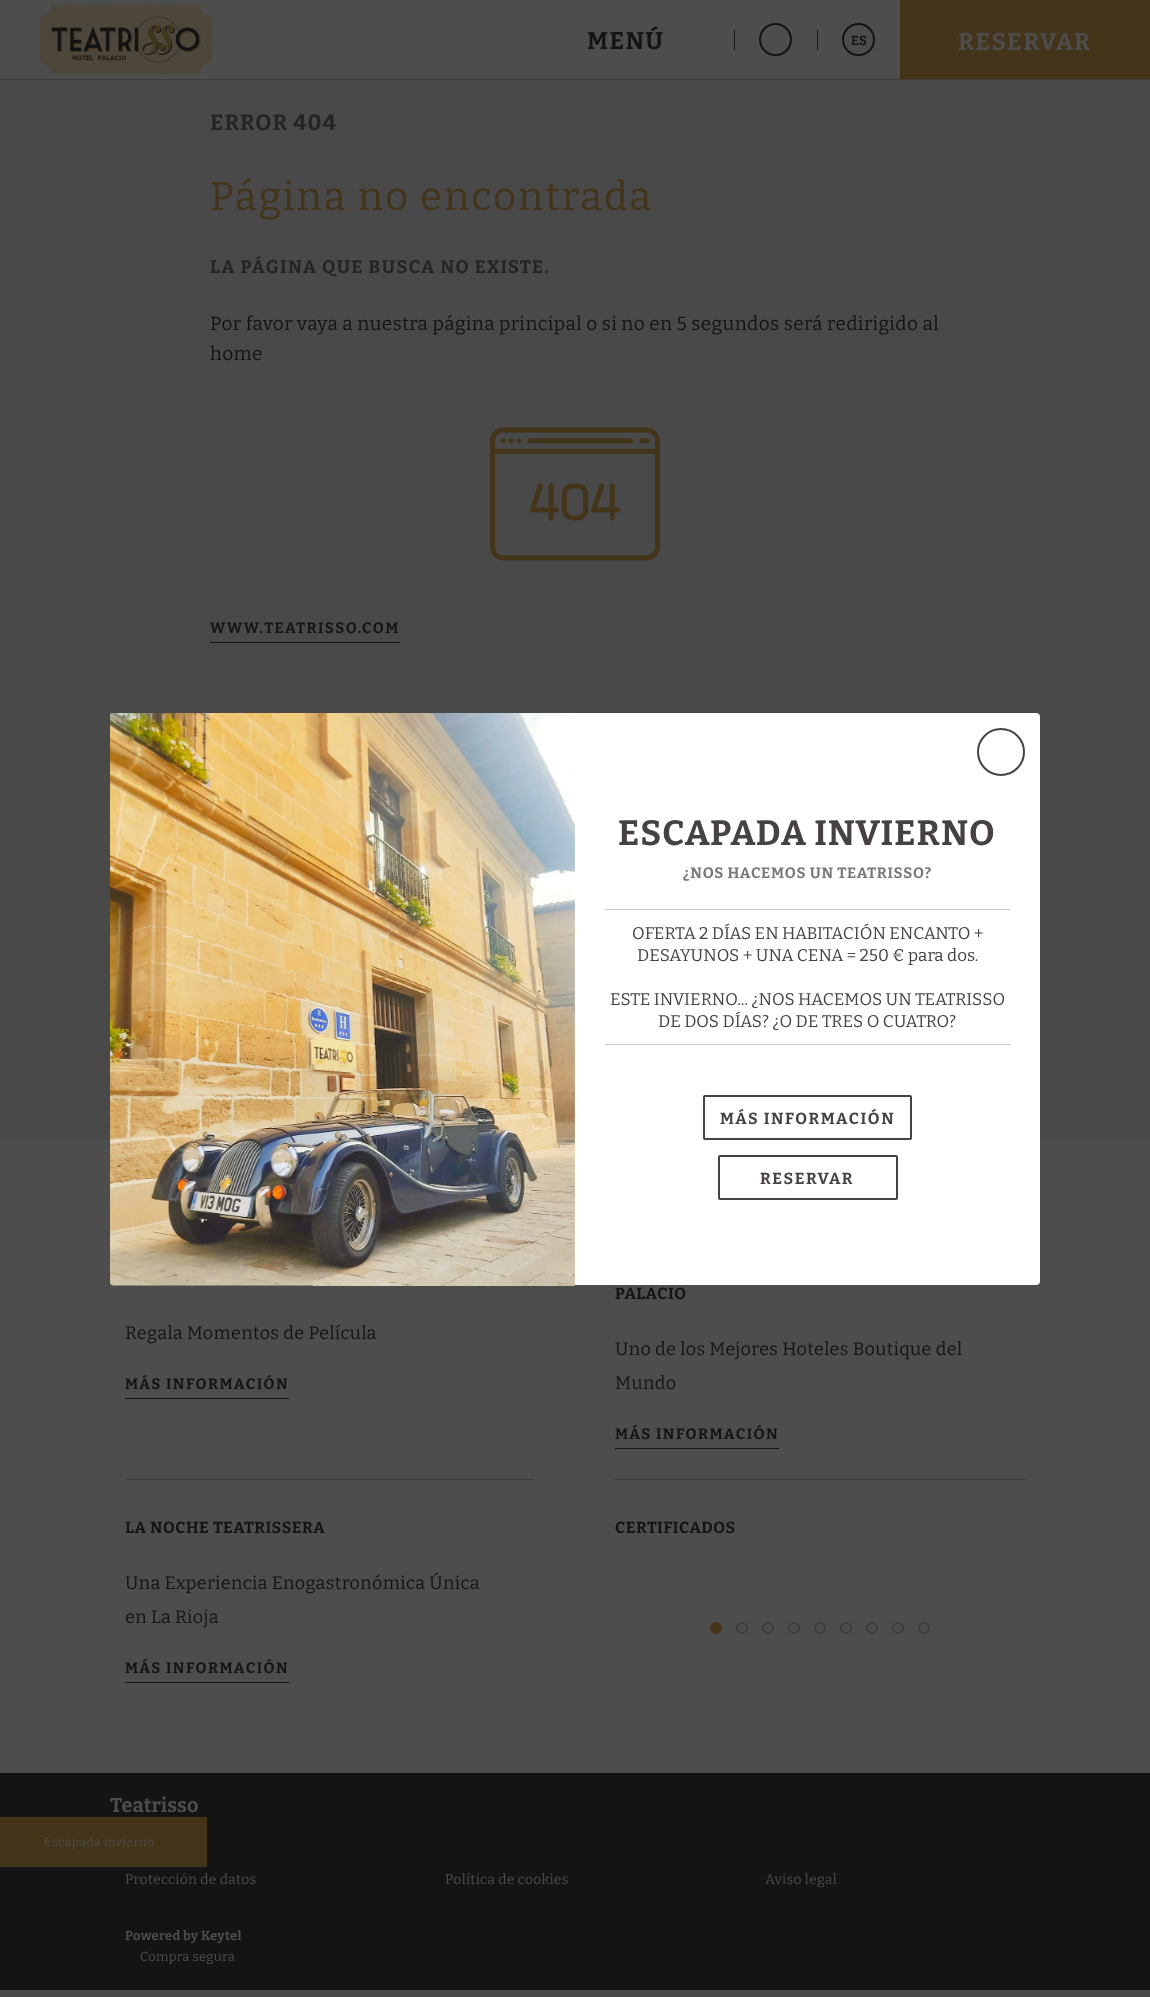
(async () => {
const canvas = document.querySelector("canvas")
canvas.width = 1150
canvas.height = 1997
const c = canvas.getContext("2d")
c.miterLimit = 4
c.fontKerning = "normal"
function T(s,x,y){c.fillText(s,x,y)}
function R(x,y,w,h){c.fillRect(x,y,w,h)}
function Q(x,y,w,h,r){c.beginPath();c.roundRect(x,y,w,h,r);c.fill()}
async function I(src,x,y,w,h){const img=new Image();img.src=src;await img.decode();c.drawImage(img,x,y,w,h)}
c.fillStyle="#494949"
R(0,0,1150,1997)
c.fillStyle="#4d4d4d"
R(0,0,900,79)
c.fillStyle="#3d3d3d"
R(0,79,1150,1)
await I("1.png",40,5,172,69)
c.letterSpacing="1.45px"
c.font="bold 24px Bitter"
c.fillStyle="#151414"
T("MENÚ",587,49)
R(734,30,1,20)
c.beginPath()
c.arc(775.5,39.5,15.5,0,7)
c.strokeStyle="#151414"
c.lineWidth=2
c.stroke()
R(817,30,1,20)
c.beginPath()
c.arc(858.5,39.5,15.5,0,7)
c.stroke()
c.letterSpacing="0px"
c.font="bold 13px Bitter"
T("ES",851,45)
c.fillStyle="#43341a"
R(900,0,250,79)
c.letterSpacing="1.45px"
c.font="bold 24px Bitter"
c.fillStyle="#4d4d4d"
T("RESERVAR",958,50)
c.letterSpacing="1px"
c.font="bold 22px Bitter"
c.fillStyle="#252424"
T("ERROR 404",210,130)
c.letterSpacing="2px"
c.font="40px Bitter"
c.fillStyle="#43341a"
T("Página no encontrada",210,210)
c.letterSpacing="1.45px"
c.font="bold 18px Bitter"
c.fillStyle="#252424"
T("LA PÁGINA QUE BUSCA NO EXISTE.",210,273)
c.letterSpacing="0.38px"
c.font="19px Bitter"
c.fillStyle="#151414"
T("Por favor vaya a nuestra página principal o si no en 5 segundos será redirigido al",210,330)
T("home",210,360)
await I("2.png",490,427,170,134)
R(210,642,190,1)
c.letterSpacing="1.5px"
c.font="bold 15px Bitter"
T("WWW.TEATRISSO.COM",210,633)
c.fillStyle="#4d4d4d"
R(0,1139,1150,634)
c.fillStyle="#fff"
Q(110,713,930,572,4)
await I("3.png",110,713,465,573)
c.beginPath()
c.arc(1001,752,23,0,7)
c.strokeStyle="#474242"
c.stroke()
c.fillStyle="#cccbcc"
R(605,909,405,1)
c.letterSpacing="1px"
c.font="bold 35px Bitter"
c.fillStyle="#474242"
T("ESCAPADA INVIERNO",618,845)
c.letterSpacing="0.75px"
c.font="bold 15px Bitter"
c.fillStyle="#7b7777"
T("¿NOS HACEMOS UN TEATRISSO?",683,878)
c.fillStyle="#cccbcc"
R(605,1044,405,1)
c.letterSpacing="0px"
c.font="17px Bitter"
c.fillStyle="#474242"
T("OFERTA 2 DÍAS EN HABITACIÓN ENCANTO +",632,939)
T("DESAYUNOS + UNA CENA = 250 € para dos.",637,961)
T("ESTE INVIERNO... ¿NOS HACEMOS UN TEATRISSO",610,1005)
T("DE DOS DÍAS? ¿O DE TRES O CUATRO?",658,1027)
c.beginPath()
c.roundRect(704,1096,207,43,1)
c.stroke()
c.letterSpacing="1.6px"
c.font="bold 16px Bitter"
T("MÁS INFORMACIÓN",720,1124)
c.beginPath()
c.roundRect(719,1156,178,43,1)
c.stroke()
T("RESERVAR",760,1184)
c.fillStyle="#151414"
R(0,1773,1150,217)
c.fillStyle="#43341a"
R(0,1817,207,50)
c.letterSpacing="0.5px"
c.font="12px Noto Sans"
c.fillStyle="#4d4d4d"
T("E",44,1846)
c.font="12px Bitter"
T("scapada invierno",52,1846)
c.letterSpacing="0.35px"
c.font="18px Bitter"
c.fillStyle="#151414"
T("Regala Momentos de Película",125,1339)
R(125,1398,164,1)
c.letterSpacing="1.5px"
c.font="bold 15px Bitter"
T("MÁS INFORMACIÓN",125,1389)
c.letterSpacing="0.6px"
c.font="bold 16px Bitter"
T("PALACIO",615,1299)
c.letterSpacing="0.35px"
c.font="18px Bitter"
T("Uno de los Mejores Hoteles Boutique del",615,1355)
T("Mundo",615,1389)
R(615,1448,164,1)
c.letterSpacing="1.5px"
c.font="bold 15px Bitter"
T("MÁS INFORMACIÓN",615,1439)
c.fillStyle="#3d3d3d"
R(125,1479,410,1)
c.letterSpacing="0.6px"
c.font="bold 16px Bitter"
c.fillStyle="#151414"
T("LA NOCHE TEATRISSERA",125,1533)
c.letterSpacing="0.35px"
c.font="18px Bitter"
T("Una Experiencia Enogastronómica Única",125,1589)
T("en La Rioja",125,1623)
R(125,1682,164,1)
c.letterSpacing="1.5px"
c.font="bold 15px Bitter"
T("MÁS INFORMACIÓN",125,1673)
c.fillStyle="#3d3d3d"
R(615,1479,410,1)
c.letterSpacing="0.6px"
c.font="bold 16px Bitter"
c.fillStyle="#151414"
T("CERTIFICADOS",615,1533)
c.fillStyle="#43341a"
c.beginPath()
c.arc(716,1628,6,0,7)
c.fill()
c.beginPath()
c.arc(742,1628,5,0,7)
c.strokeStyle="#3d3d3d"
c.stroke()
c.beginPath()
c.arc(768,1628,5,0,7)
c.stroke()
c.beginPath()
c.arc(794,1628,5,0,7)
c.stroke()
c.beginPath()
c.arc(820,1628,5,0,7)
c.stroke()
c.beginPath()
c.arc(846,1628,5,0,7)
c.stroke()
c.beginPath()
c.arc(872,1628,5,0,7)
c.stroke()
c.beginPath()
c.arc(898,1628,5,0,7)
c.stroke()
c.beginPath()
c.arc(924,1628,5,0,7)
c.stroke()
c.letterSpacing="0px"
c.font="bold 20px Bitter"
c.fillStyle="#4d4d4d"
T("Teatrisso",110,1812)
c.letterSpacing="0.25px"
c.font="14px Bitter"
T("Protección de datos",125,1884)
T("Política de cookies",445,1884)
T("Aviso legal",765,1884)
c.font="bold 13px Bitter"
T("Powered by Keytel",125,1940)
c.font="13px Bitter"
T("Compra segura",140,1961)
})()
